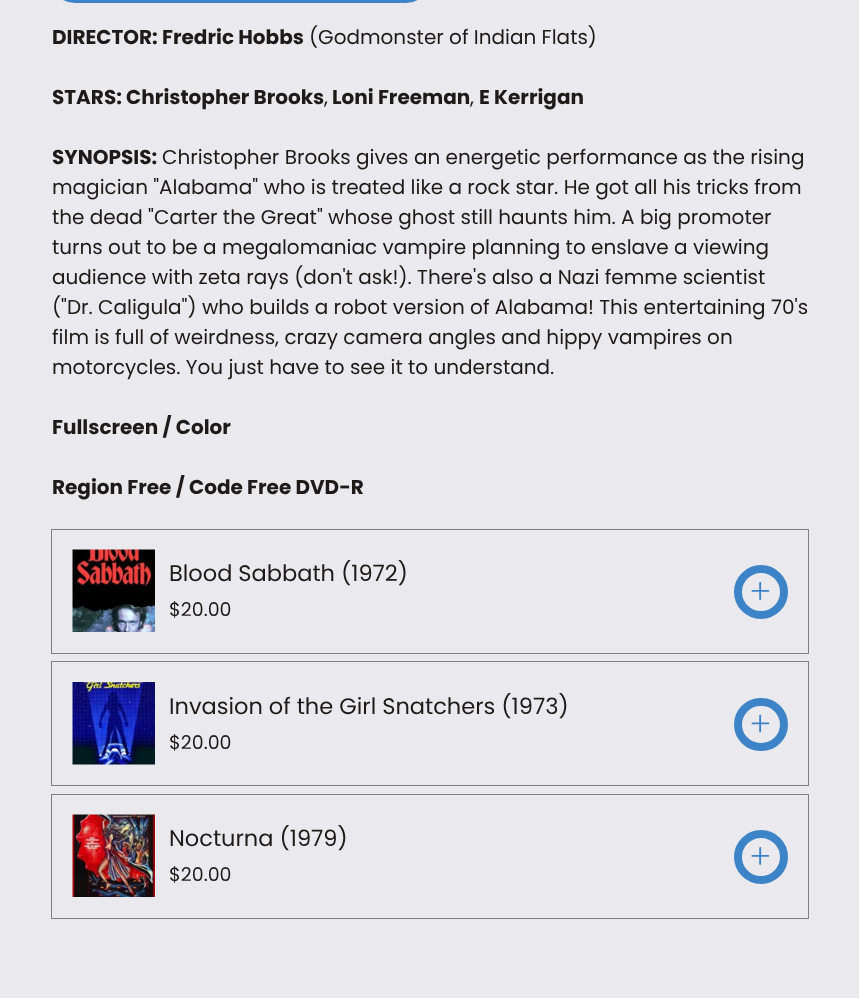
(async () => {
const canvas = document.querySelector("canvas")
canvas.width = 859
canvas.height = 998
const c = canvas.getContext("2d")
c.miterLimit = 4
c.fontKerning = "normal"
function T(s,x,y){c.fillText(s,x,y)}
function R(x,y,w,h){c.fillRect(x,y,w,h)}
async function I(src,x,y,w,h){const img=new Image();img.src=src;await img.decode();c.drawImage(img,x,y,w,h)}
c.fillStyle="#eaeaee"
R(0,0,859,998)
c.beginPath()
c.roundRect(55,-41,371,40,33)
c.strokeStyle="#3d83c7"
c.lineWidth=8
c.stroke()
c.font="bold 20px Poppins"
c.fillStyle="#1d1a1a"
T("DIRECTOR: Fredric Hobbs",52,44)
c.font="20px Poppins"
T("(Godmonster of Indian Flats)",309,44)
c.font="bold 20px Poppins"
T("STARS: Christopher Brooks",52,104)
c.font="20px Poppins"
T(",",324,104)
c.font="bold 20px Poppins"
T("Loni Freeman",332,104)
c.font="20px Poppins"
T(",",470,104)
c.font="bold 20px Poppins"
T("E Kerrigan",479,104)
T("SYNOPSIS:",52,164)
c.font="20px Poppins"
T("Christopher Brooks gives an energetic performance as the rising",162,164)
T("magician \"Alabama\" who is treated like a rock star. He got all his tricks from",52,194)
T("the dead \"Carter the Great\" whose ghost still haunts him. A big promoter",52,224)
T("turns out to be a megalomaniac vampire planning to enslave a viewing",52,254)
T("audience with zeta rays (don't ask!). There's also a Nazi femme scientist",52,284)
T("(\"Dr. Caligula\") who builds a robot version of Alabama! This entertaining 70's",52,314)
T("film is full of weirdness, crazy camera angles and hippy vampires on",52,344)
T("motorcycles. You just have to see it to understand.",52,374)
c.font="bold 20px Poppins"
T("Fullscreen / Color",52,434)
T("Region Free / Code Free DVD-R",52,494)
c.strokeStyle="#808080"
c.lineWidth=1
c.strokeRect(51.5,529.5,757,124)
await I("1.png",72,549,83,83)
c.font="22.5px Poppins"
T("Blood Sabbath (1972)",169,581)
c.font="19px Poppins"
T("$20.00",169,616)
c.beginPath()
c.arc(761,592,23,0,7)
c.strokeStyle="#3d83c7"
c.lineWidth=8
c.stroke()
await I("2.png",751,582,19,18)
c.strokeStyle="#808080"
c.lineWidth=1
c.strokeRect(51.5,661.5,757,124)
await I("3.png",72,682,83,83)
c.font="22.5px Poppins"
T("Invasion of the Girl Snatchers (1973)",169,714)
c.font="19px Poppins"
T("$20.00",169,749)
c.beginPath()
c.roundRect(738,702,46,45,22.5)
c.strokeStyle="#3d83c7"
c.lineWidth=8
c.stroke()
await I("4.png",751,714,19,19)
c.strokeStyle="#808080"
c.lineWidth=1
c.strokeRect(51.5,794.5,757,124)
await I("5.png",72,814,83,83)
c.font="22.5px Poppins"
T("Nocturna (1979)",169,846)
c.font="19px Poppins"
T("$20.00",169,881)
c.beginPath()
c.arc(761,857,23,0,7)
c.strokeStyle="#3d83c7"
c.lineWidth=8
c.stroke()
await I("2.png",751,847,19,18)
})()
